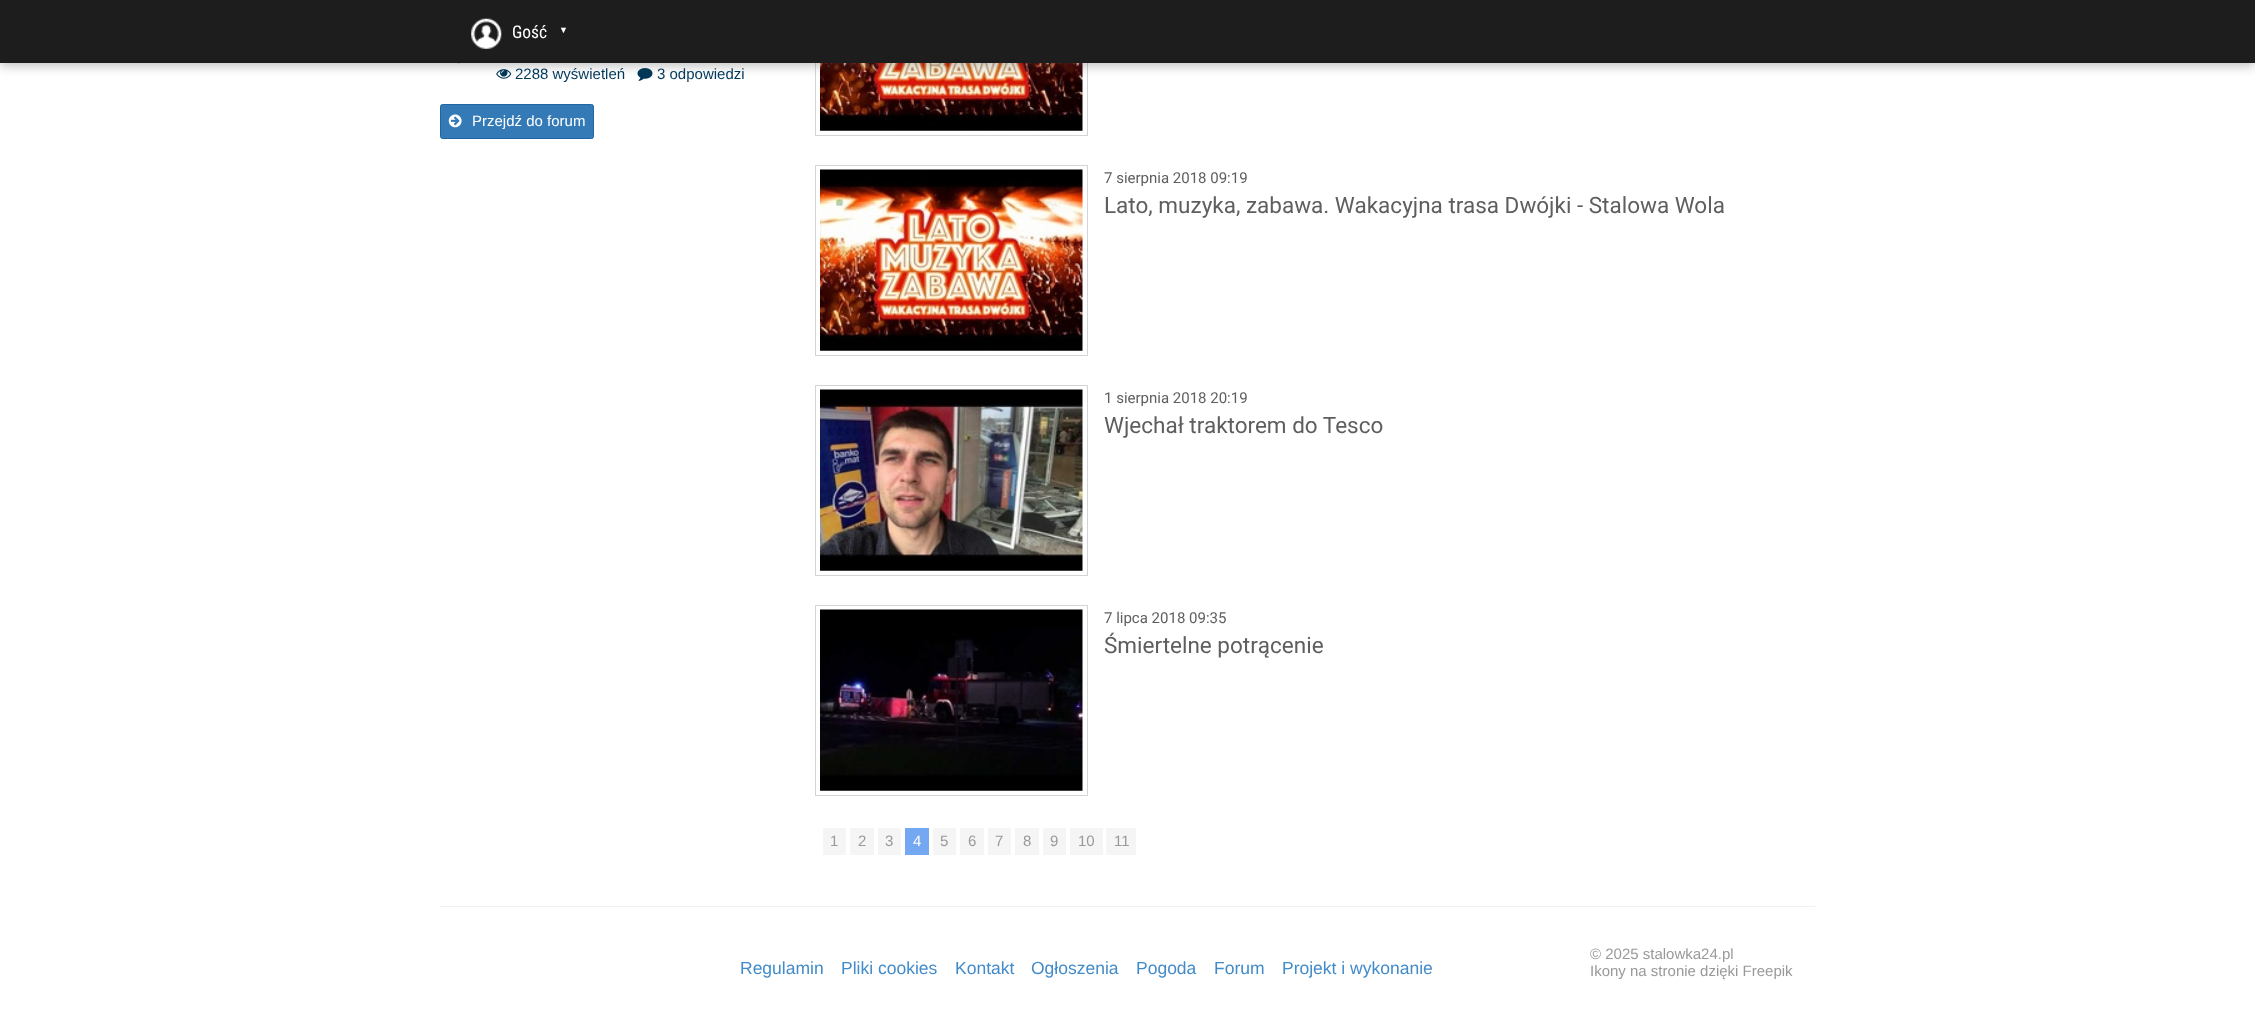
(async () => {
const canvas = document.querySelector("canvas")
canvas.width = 2255
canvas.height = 1032
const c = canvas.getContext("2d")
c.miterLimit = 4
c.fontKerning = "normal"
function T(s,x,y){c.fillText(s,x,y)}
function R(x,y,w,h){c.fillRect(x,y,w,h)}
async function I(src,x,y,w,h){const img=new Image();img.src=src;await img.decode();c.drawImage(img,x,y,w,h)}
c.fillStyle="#fff"
R(0,0,2255,1032)
await I("2.png",457,63,3,1)
await I("3.png",496,69,16,10)
await I("4.png",637,68,16,13)
c.strokeStyle="#d4d4d4"
c.strokeRect(815.5,-.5,272,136)
await I("6.png",820,63,263,68)
c.fillStyle="#3232324d"
c.filter="blur(5.5px)"
c.beginPath()
c.rect(0,4,2255,62)
c.fill()
c.filter="none"
c.fillStyle="#1d1d1d"
R(0,0,2255,63)
await I("1.png",471,18,31,31)
c.font="17.5px Roboto Condensed"
c.fillStyle="#fff"
T("Gość",512,38)
c.font="9px Liberation Sans"
T("▼",559,33)
c.font="15px Liberation Sans"
c.fillStyle="#003859"
T("2288 wyświetleń",515,79)
T("3 odpowiedzi",657,79)
c.fillStyle="#337ab7"
c.beginPath()
c.roundRect(440.5,104.5,153,34,2)
c.fill()
c.strokeStyle="#1f66a3"
c.stroke()
await I("5.png",448,114,14,14)
c.fillStyle="#fff"
T("Przejdź do forum",472,126)
c.strokeStyle="#d4d4d4"
c.strokeRect(815.5,165.5,272,190)
await I("7.png",820,169,263,182)
c.font="15px Roboto"
c.fillStyle="#5e5e5e"
T("7 sierpnia 2018 09:19",1104,183)
c.font="22.5px Roboto"
T("Lato, muzyka, zabawa. Wakacyjna trasa Dwójki - Stalowa Wola",1104,213)
c.strokeRect(815.5,385.5,272,190)
await I("8.png",820,389,263,182)
c.font="15px Roboto"
T("1 sierpnia 2018 20:19",1104,403)
c.font="22.5px Roboto"
T("Wjechał traktorem do Tesco",1104,433)
c.strokeRect(815.5,605.5,272,190)
await I("9.png",820,609,263,182)
c.font="15px Roboto"
T("7 lipca 2018 09:35",1104,623)
c.font="22.5px Roboto"
T("Śmiertelne potrącenie",1104,653)
c.fillStyle="#f5f5f5"
R(823,828,23,27)
c.font="15px Liberation Sans"
c.fillStyle="#999"
T("1",830,846)
c.fillStyle="#f5f5f5"
R(850,828,24,27)
c.fillStyle="#999"
T("2",858,846)
c.fillStyle="#f5f5f5"
R(878,828,23,27)
c.fillStyle="#999"
T("3",885,846)
c.fillStyle="#74a8f3"
R(905,828,24,27)
c.fillStyle="#fff"
T("4",913,846)
c.fillStyle="#f5f5f5"
R(933,828,23,27)
c.fillStyle="#999"
T("5",940,846)
c.fillStyle="#f5f5f5"
R(960,828,24,27)
c.fillStyle="#999"
T("6",968,846)
c.fillStyle="#f5f5f5"
R(988,828,23,27)
c.fillStyle="#999"
T("7",995,846)
c.fillStyle="#f5f5f5"
R(1015,828,24,27)
c.fillStyle="#999"
T("8",1023,846)
c.fillStyle="#f5f5f5"
R(1043,828,23,27)
c.fillStyle="#999"
T("9",1050,846)
c.fillStyle="#f5f5f5"
R(1070,828,33,27)
c.fillStyle="#999"
T("10",1078,846)
c.fillStyle="#f5f5f5"
R(1106,828,30,27)
c.fillStyle="#999"
T("11",1114,846)
c.fillStyle="#f1f1f1"
R(440,906,1375,1)
c.font="17.5px Liberation Sans"
c.fillStyle="#428bca"
T("Regulamin",740,974)
T("Pliki cookies",841,974)
T("Kontakt",955,974)
T("Ogłoszenia",1031,974)
T("Pogoda",1136,974)
T("Forum",1214,974)
T("Projekt i wykonanie",1282,974)
c.font="15px Liberation Sans"
c.fillStyle="#999"
T("© 2025 stalowka24.pl",1590,959)
T("Ikony na stronie dzięki Freepik",1590,976)
})()
